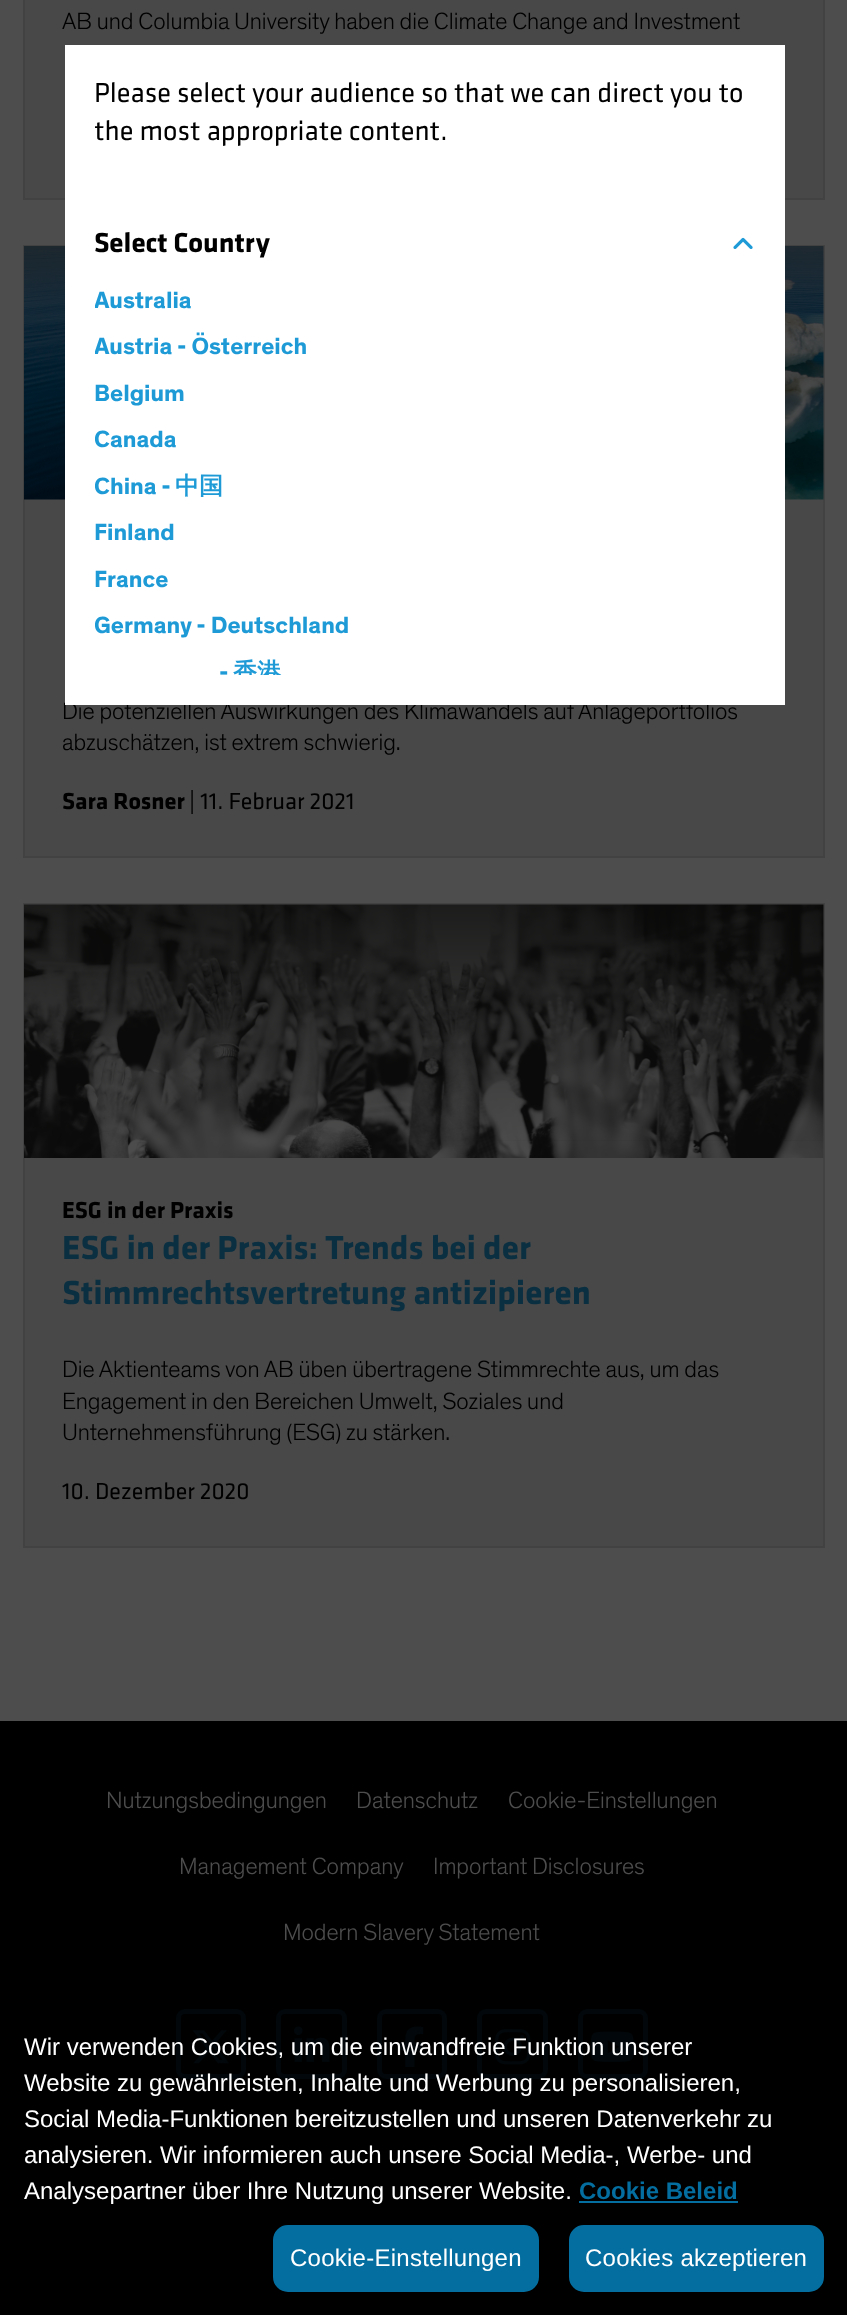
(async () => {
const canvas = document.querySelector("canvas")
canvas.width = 847
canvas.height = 2315
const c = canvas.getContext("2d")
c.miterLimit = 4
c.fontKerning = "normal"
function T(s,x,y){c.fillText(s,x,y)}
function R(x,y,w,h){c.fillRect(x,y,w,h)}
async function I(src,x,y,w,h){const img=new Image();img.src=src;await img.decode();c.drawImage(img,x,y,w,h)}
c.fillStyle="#4d4d4d"
R(0,0,847,2315)
c.fillStyle="#484848"
c.beginPath()
c.rect(24,-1,800,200)
c.fill()
c.strokeStyle="#424242"
c.lineWidth=2
c.stroke()
c.font="300 24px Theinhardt"
c.fillStyle="#000"
T("AB und Columbia University haben die Climate Change and Investment",62,29)
c.fillStyle="#484848"
R(25,499,798,357)
c.strokeRect(24,246,800,611)
await I("1.png",24,246,800,254)
c.fillStyle="#000"
T("Die potenziellen Auswirkungen des Klimawandels auf Anlageportfolios",62,719)
T("abzuschätzen, ist extrem schwierig.",62,750)
c.font="bold 24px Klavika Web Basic"
T("Sara Rosner",62,809)
c.font="24px Klavika Web Basic"
T("| 11. Februar 2021",189,809)
c.fillStyle="#484848"
R(25,1158,798,388)
c.strokeRect(24,904,800,643)
await I("2.png",24,904,800,254)
c.font="bold 24px Klavika Web Basic"
c.fillStyle="#000"
T("ESG in der Praxis",62,1218)
c.font="bold 34.5px Klavika Web Basic"
c.fillStyle="#092f41"
T("ESG in der Praxis: Trends bei der",62,1259)
T("Stimmrechtsvertretung antizipieren",62,1304)
c.font="300 24px Theinhardt"
c.fillStyle="#000"
T("Die Aktienteams von AB üben übertragene Stimmrechte aus, um das",62,1377)
T("Engagement in den Bereichen Umwelt, Soziales und",62,1409)
T("Unternehmensführung (ESG) zu stärken.",62,1440)
c.font="24px Klavika Web Basic"
T("10. Dezember 2020",62,1499)
R(0,1721,847,594)
c.font="300 24px Theinhardt"
c.fillStyle="#4d4d4d"
T("Nutzungsbedingungen",106,1808)
T("Datenschutz",356,1808)
T("Cookie-Einstellungen",508,1808)
T("Management Company",179,1874)
T("Important Disclosures",433,1874)
T("Modern Slavery Statement",283,1940)
c.beginPath()
c.roundRect(178.5,2011.5,65,65,6.5)
c.strokeStyle="#01070a"
c.lineWidth=5
c.stroke()
await I("3.png",192,2030,37,34)
c.beginPath()
c.roundRect(278.5,2011.5,66,65,6.5)
c.stroke()
await I("4.png",294,2026,36,36)
c.beginPath()
c.roundRect(379.5,2011.5,65,65,6.5)
c.stroke()
await I("5.png",400,2026,24,41)
c.beginPath()
c.roundRect(479.5,2011.5,66,65,6.5)
c.stroke()
await I("6.png",495,2029,36,36)
c.beginPath()
c.roundRect(580.5,2011.5,65,65,6.5)
c.stroke()
await I("7.png",590,2031,44,31)
c.fillStyle="#fff"
R(65,45,720,660)
c.font="28.5px Klavika Web Basic"
c.fillStyle="#000"
T("Please select your audience so that we can direct you to",94,102)
c.save()
c.beginPath()
c.rect(95,75,660,600)
c.clip()
T("the most appropriate content.",94,140)
c.restore()
c.font="bold 28.5px Klavika Web Basic"
T("Select Country",94,252)
await I("8.png",733,237,20,12)
c.save()
c.beginPath()
c.rect(95,75,660,600)
c.clip()
c.font="bold 24px Theinhardt"
c.fillStyle="#1e9bd7"
T("Australia",94,308)
T("Austria - Österreich",94,354)
c.restore()
c.font="bold 24px Theinhardt"
c.fillStyle="#1e9bd7"
T("Belgium",94,401)
c.save()
c.beginPath()
c.rect(95,75,660,600)
c.clip()
T("Canada",94,447)
T("China -",94,494)
c.restore()
c.font="bold 24px WenQuanYi Zen Hei"
T("中国",175,494)
c.font="bold 24px Theinhardt"
T("Finland",94,540)
T("France",94,587)
c.save()
c.beginPath()
c.rect(95,75,660,600)
c.clip()
T("Germany - Deutschland",94,633)
c.restore()
T("-",219,680)
c.save()
c.beginPath()
c.rect(95,75,660,600)
c.clip()
c.font="bold 24px WenQuanYi Zen Hei"
T("香港",233,680)
c.restore()
c.font="24px Liberation Sans"
c.fillStyle="#fff"
T("Wir verwenden Cookies, um die einwandfreie Funktion unserer",24,2055)
T("Website zu gewährleisten, Inhalte und Werbung zu personalisieren,",24,2091)
T("Social Media-Funktionen bereitzustellen und unseren Datenverkehr zu",24,2127)
T("analysieren. Wir informieren auch unsere Social Media-, Werbe- und",24,2163)
T("Analysepartner über Ihre Nutzung unserer Website.",24,2199)
c.font="bold 24px Liberation Sans"
c.fillStyle="#046ea0"
T("Cookie Beleid",579,2199)
R(579,2201,159,2)
c.beginPath()
c.roundRect(274,2226,264,65,14)
c.fill()
c.strokeStyle="#046ea0"
c.lineWidth=2
c.stroke()
c.letterSpacing="0.25px"
c.font="24px Liberation Sans"
c.fillStyle="#fff"
T("Cookie-Einstellungen",290,2266)
c.fillStyle="#046ea0"
c.beginPath()
c.roundRect(570,2226,253,65,14)
c.fill()
c.stroke()
c.fillStyle="#fff"
T("Cookies akzeptieren",585,2266)
})()
